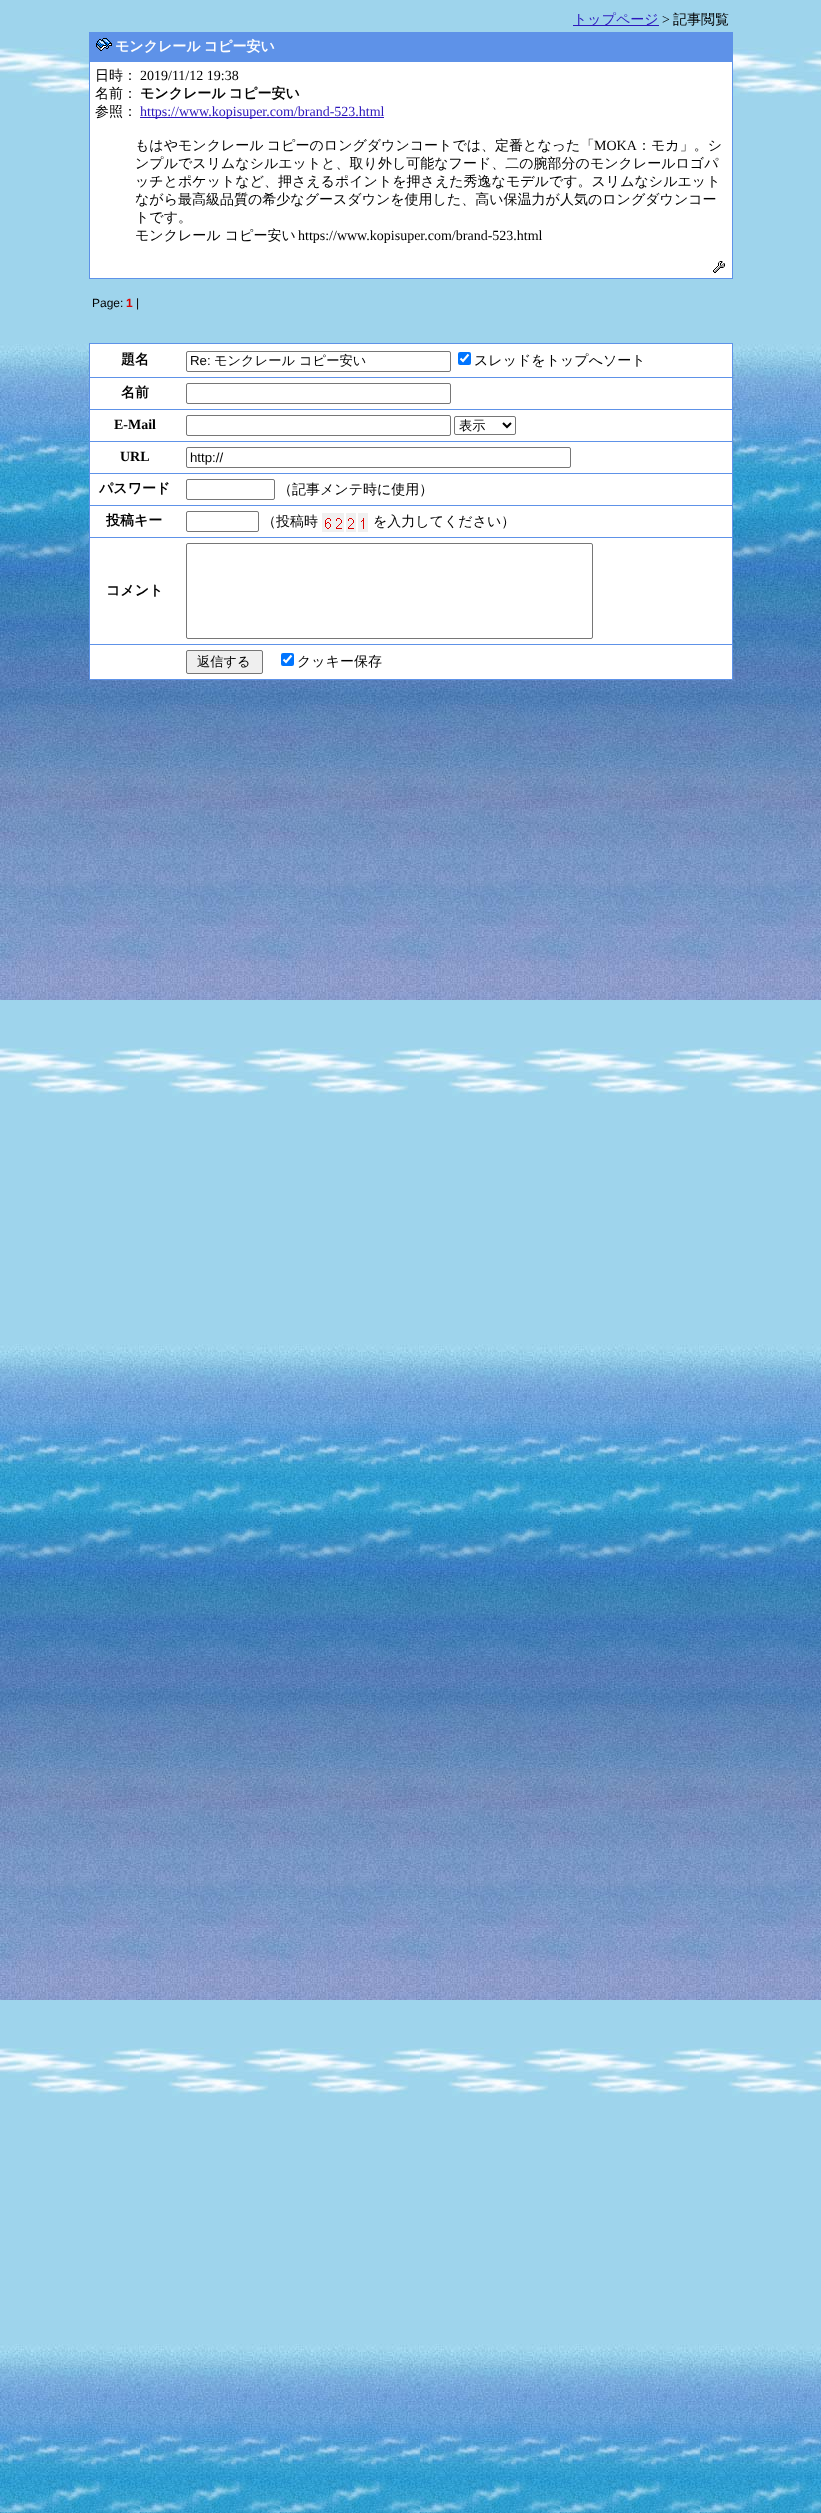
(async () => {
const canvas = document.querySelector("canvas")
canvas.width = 821
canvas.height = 2513
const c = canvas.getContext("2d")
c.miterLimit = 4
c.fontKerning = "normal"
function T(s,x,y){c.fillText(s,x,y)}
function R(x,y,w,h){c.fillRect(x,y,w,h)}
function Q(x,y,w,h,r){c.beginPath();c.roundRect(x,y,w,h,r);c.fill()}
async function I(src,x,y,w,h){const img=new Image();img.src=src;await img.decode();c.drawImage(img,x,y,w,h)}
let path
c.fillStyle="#fff"
R(0,0,821,2513)
await I("1.png",0,0,821,2513)
c.fillStyle="#2d18bc"
R(573,25,86,1)
c.font="500 14px WenQuanYi Zen Hei"
T("トップページ",573,24)
c.font="14px Liberation Serif"
c.fillStyle="#000"
T(">",662,24)
c.font="500 14px WenQuanYi Zen Hei"
T("記事閲覧",673,24)
c.fillStyle="#5e92e8"
R(89,32,644,247)
await I("2.png",96,38,16,13)
c.wordSpacing="-1px"
c.font="bold 14px WenQuanYi Zen Hei"
c.fillStyle="#fff"
T("モンクレール コピー安い",115,51)
R(90,62,642,216)
c.wordSpacing="0px"
c.font="500 14px WenQuanYi Zen Hei"
c.fillStyle="#000"
T("日時：",95,80)
c.font="14px Liberation Serif"
T("2019/11/12 19:38",140,80)
c.font="500 14px WenQuanYi Zen Hei"
T("名前：",95,98)
c.wordSpacing="-1px"
c.font="bold 14px WenQuanYi Zen Hei"
T("モンクレール コピー安い",140,98)
c.wordSpacing="0px"
c.font="500 14px WenQuanYi Zen Hei"
T("参照：",95,116)
c.fillStyle="#2d18bc"
R(140,117,244,1)
c.font="14px Liberation Serif"
T("https://www.kopisuper.com/brand-523.html",140,116)
c.wordSpacing="-1px"
c.font="500 14px WenQuanYi Zen Hei"
c.fillStyle="#000"
T("もはやモンクレール コピーのロングダウンコートでは、定番となった「",135,150)
c.wordSpacing="0px"
c.font="14px Liberation Serif"
T("MOKA",594,150)
c.font="500 14px WenQuanYi Zen Hei"
T("：モカ」。シ",637,150)
T("ンプルでスリムなシルエットと、取り外し可能なフード、二の腕部分のモンクレールロゴパ",135,168)
T("ッチとポケットなど、押さえるポイントを押さえた秀逸なモデルです。スリムなシルエット",135,186)
T("ながら最高級品質の希少なグースダウンを使用した、高い保温力が人気のロングダウンコー",135,204)
T("トです。",135,222)
T("モンクレール コピー安い",135,240)
c.font="14px Liberation Serif"
T("https://www.kopisuper.com/brand-523.html",298,240)
await I("3.png",713,261,12,12)
c.font="12px Liberation Sans"
T("Page:",92,307)
c.font="bold 12px Liberation Sans"
c.fillStyle="#d00"
T("1",126,307)
c.font="12px Liberation Sans"
c.fillStyle="#000"
T("|",136,307)
c.fillStyle="#5e92e8"
R(89,343,644,337)
c.fillStyle="#fff"
R(90,344,642,33)
c.font="bold 14px WenQuanYi Zen Hei"
c.fillStyle="#000"
T("題名",121,364)
c.beginPath()
c.roundRect(186.5,351.5,264,20,1.5)
c.strokeStyle="#767676"
c.stroke()
c.font="13.25px Liberation Sans"
T("Re:",190,365)
c.font="500 13.25px WenQuanYi Zen Hei"
T("モンクレール コピー安い",214,365)
c.fillStyle="#0075ff"
Q(458,352,13,13,2)
path = new Path2D("M460.5 358.5l2.5 2.5l5.5-6.5")
c.strokeStyle="#fff"
c.lineWidth=2.1
c.stroke(path)
c.font="500 14px WenQuanYi Zen Hei"
c.fillStyle="#000"
T("スレッドをトップへソート",474,365)
c.fillStyle="#fff"
R(90,378,642,31)
c.font="bold 14px WenQuanYi Zen Hei"
c.fillStyle="#000"
T("名前",121,397)
c.beginPath()
c.roundRect(186.5,383.5,264,20,1.5)
c.strokeStyle="#767676"
c.lineWidth=1
c.stroke()
c.fillStyle="#fff"
R(90,410,642,31)
c.font="bold 14px Liberation Serif"
c.fillStyle="#000"
T("E-Mail",114,429)
c.beginPath()
c.roundRect(186.5,415.5,264,20,1.5)
c.stroke()
c.beginPath()
c.roundRect(454.5,416.5,61,18,1.5)
c.stroke()
path = new Path2D("M503 423l4 4l4-4")
c.strokeStyle="#000"
c.lineWidth=2
c.stroke(path)
c.font="500 13.25px WenQuanYi Zen Hei"
T("表示",459,430)
c.fillStyle="#fff"
R(90,442,642,31)
c.font="bold 14px Liberation Serif"
c.fillStyle="#000"
T("URL",120,461)
c.beginPath()
c.roundRect(186.5,447.5,384,20,1.5)
c.strokeStyle="#767676"
c.lineWidth=1
c.stroke()
c.font="13.25px Liberation Sans"
T("http://",190,462)
c.fillStyle="#fff"
R(90,474,642,31)
c.font="bold 14px WenQuanYi Zen Hei"
c.fillStyle="#000"
T("パスワード",99,493)
c.beginPath()
c.roundRect(186.5,479.5,88,20,1.5)
c.stroke()
c.font="500 14px WenQuanYi Zen Hei"
T("（記事メンテ時に使用）",278,494)
c.fillStyle="#fff"
R(90,506,642,31)
c.font="bold 14px WenQuanYi Zen Hei"
c.fillStyle="#000"
T("投稿キー",106,525)
c.beginPath()
c.roundRect(186.5,511.5,72,20,1.5)
c.stroke()
c.font="500 14px WenQuanYi Zen Hei"
T("（投稿時",262,526)
await I("4.png",322,513,46,19)
T("を入力してください）",373,526)
c.fillStyle="#fff"
R(90,538,642,106)
c.font="bold 14px WenQuanYi Zen Hei"
c.fillStyle="#000"
T("コメント",106,595)
c.beginPath()
c.roundRect(186.5,543.5,406,95,1.5)
c.stroke()
c.fillStyle="#fff"
R(90,645,642,34)
c.fillStyle="#efefef"
c.beginPath()
c.roundRect(186.5,650.5,76,23,1.5)
c.fill()
c.stroke()
c.font="500 13.25px WenQuanYi Zen Hei"
c.fillStyle="#000"
T("返信する",197,666)
c.fillStyle="#0075ff"
Q(281,653,13,13,2)
path = new Path2D("M283.5 659.5l2.5 2.5l5.5-6.5")
c.strokeStyle="#fff"
c.lineWidth=2.1
c.stroke(path)
c.font="500 14px WenQuanYi Zen Hei"
c.fillStyle="#000"
T("クッキー保存",297,666)
})()
